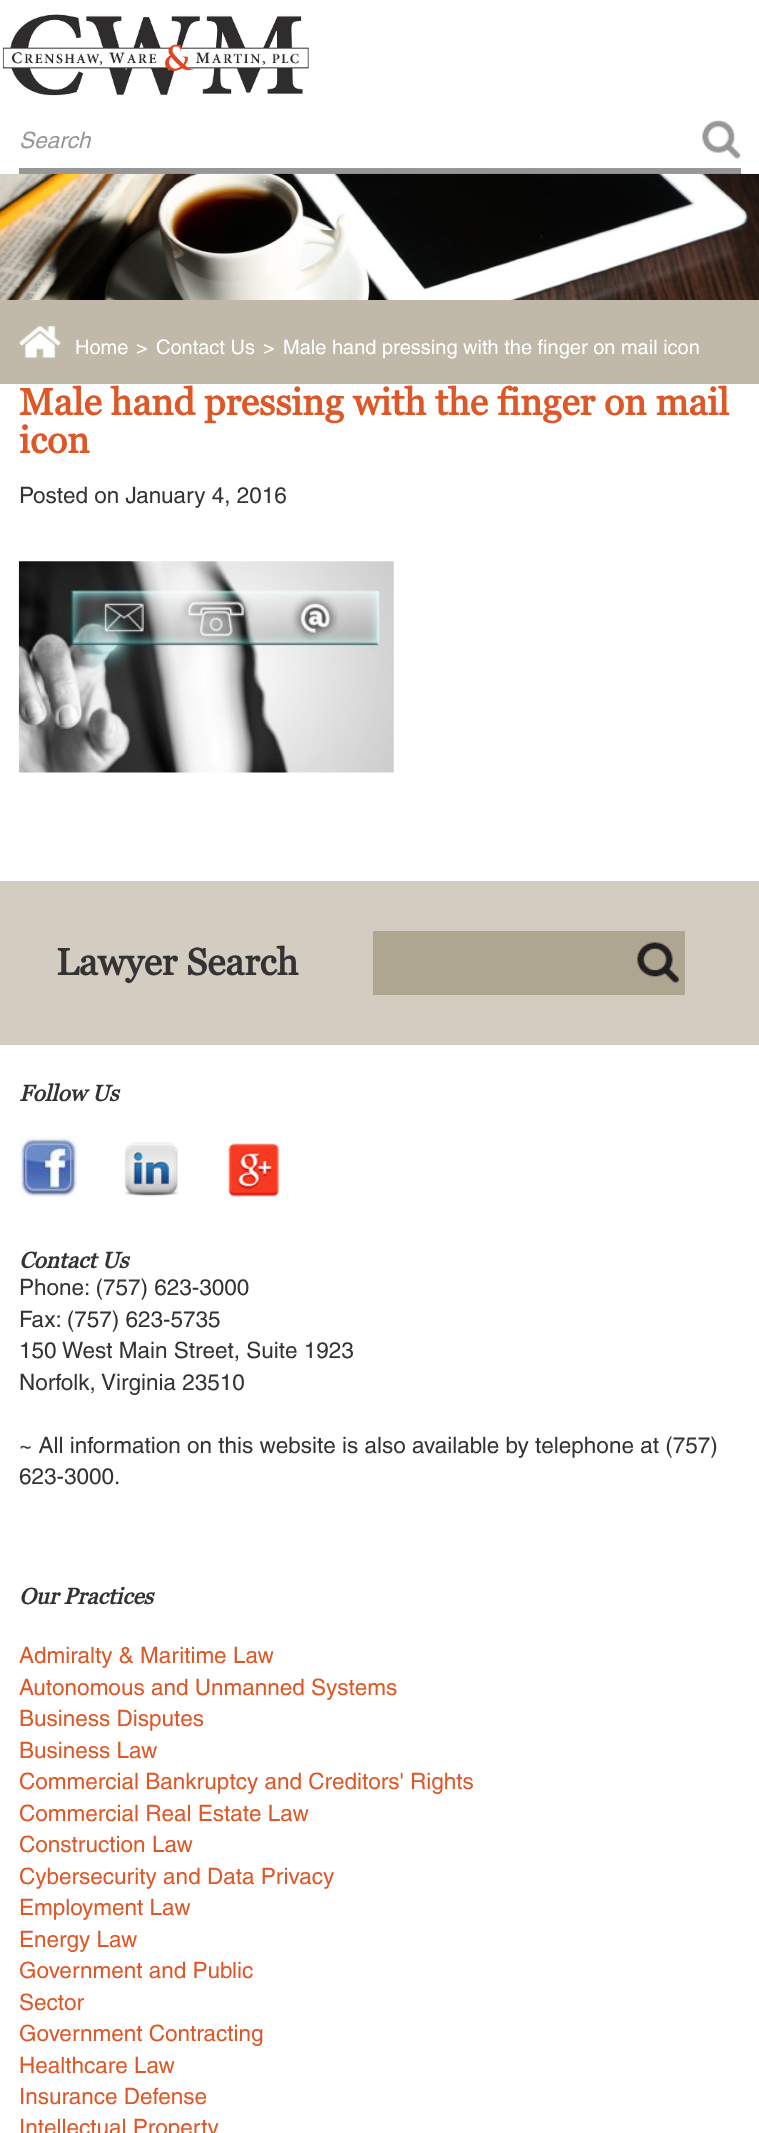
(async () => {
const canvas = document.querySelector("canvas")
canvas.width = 759
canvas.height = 2133
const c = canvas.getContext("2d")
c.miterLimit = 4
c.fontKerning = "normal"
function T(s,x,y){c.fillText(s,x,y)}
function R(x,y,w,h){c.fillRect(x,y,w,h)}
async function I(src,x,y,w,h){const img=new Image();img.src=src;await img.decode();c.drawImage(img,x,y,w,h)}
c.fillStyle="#fff"
R(0,0,759,2133)
await I("1.png",2,14,307,82)
c.fillStyle="#989797"
R(19,168,722,6)
c.font="italic 500 22.5px Helvetica"
T("Search",19,148)
await I("2.png",702,120,39,39)
await I("3.png",0,173,759,127)
c.fillStyle="#c0b9a9"
R(0,300,759,84)
await I("4.png",19,326,42,32)
c.font="500 20px Helvetica"
c.fillStyle="#fff"
T("Home",75,354)
T(">",136,354)
T("Contact Us",156,354)
T(">",263,354)
T("Male hand pressing with the finger on mail icon",283,354)
c.font="bold 37.5px Georgia"
c.fillStyle="#de5727"
T("Male hand pressing with the finger on mail",19,415)
T("icon",19,453)
c.font="500 22.5px Helvetica"
c.fillStyle="#333"
T("Posted on January 4, 2016",19,503)
await I("5.png",18,561,376,212)
c.fillStyle="#d2ccc1"
R(0,881,759,164)
c.font="bold 37.5px Georgia"
c.fillStyle="#333"
T("Lawyer Search",56,975)
c.fillStyle="#afa692"
R(373,931,312,64)
await I("6.png",637,942,42,41)
c.font="italic bold 22.5px Georgia"
c.fillStyle="#333"
T("Follow Us",19,1101)
await I("7.png",19,1136,59,61)
await I("8.png",124,1142,55,55)
await I("9.png",228,1143,51,54)
T("Contact Us",19,1268)
c.font="500 22.5px Helvetica"
T("Phone: (757) 623-3000",19,1295)
T("Fax: (757) 623-5735",19,1327)
T("150 West Main Street, Suite 1923",19,1358)
T("Norfolk, Virginia 23510",19,1390)
T("~ All information on this website is also available by telephone at (757)",19,1453)
T("623-3000.",19,1484)
c.font="italic bold 22.5px Georgia"
T("Our Practices",19,1604)
c.font="500 22.5px Helvetica"
c.fillStyle="#de5727"
T("Admiralty & Maritime Law",19,1663)
T("Autonomous and Unmanned Systems",19,1695)
T("Business Disputes",19,1726)
T("Business Law",19,1758)
T("Commercial Bankruptcy and Creditors' Rights",19,1789)
T("Commercial Real Estate Law",19,1821)
T("Construction Law",19,1852)
T("Cybersecurity and Data Privacy",19,1884)
T("Employment Law",19,1915)
T("Energy Law",19,1947)
T("Government and Public",19,1978)
T("Sector",19,2010)
T("Government Contracting",19,2041)
T("Healthcare Law",19,2073)
T("Insurance Defense",19,2104)
T("Intellectual Property",19,2135)
})()
